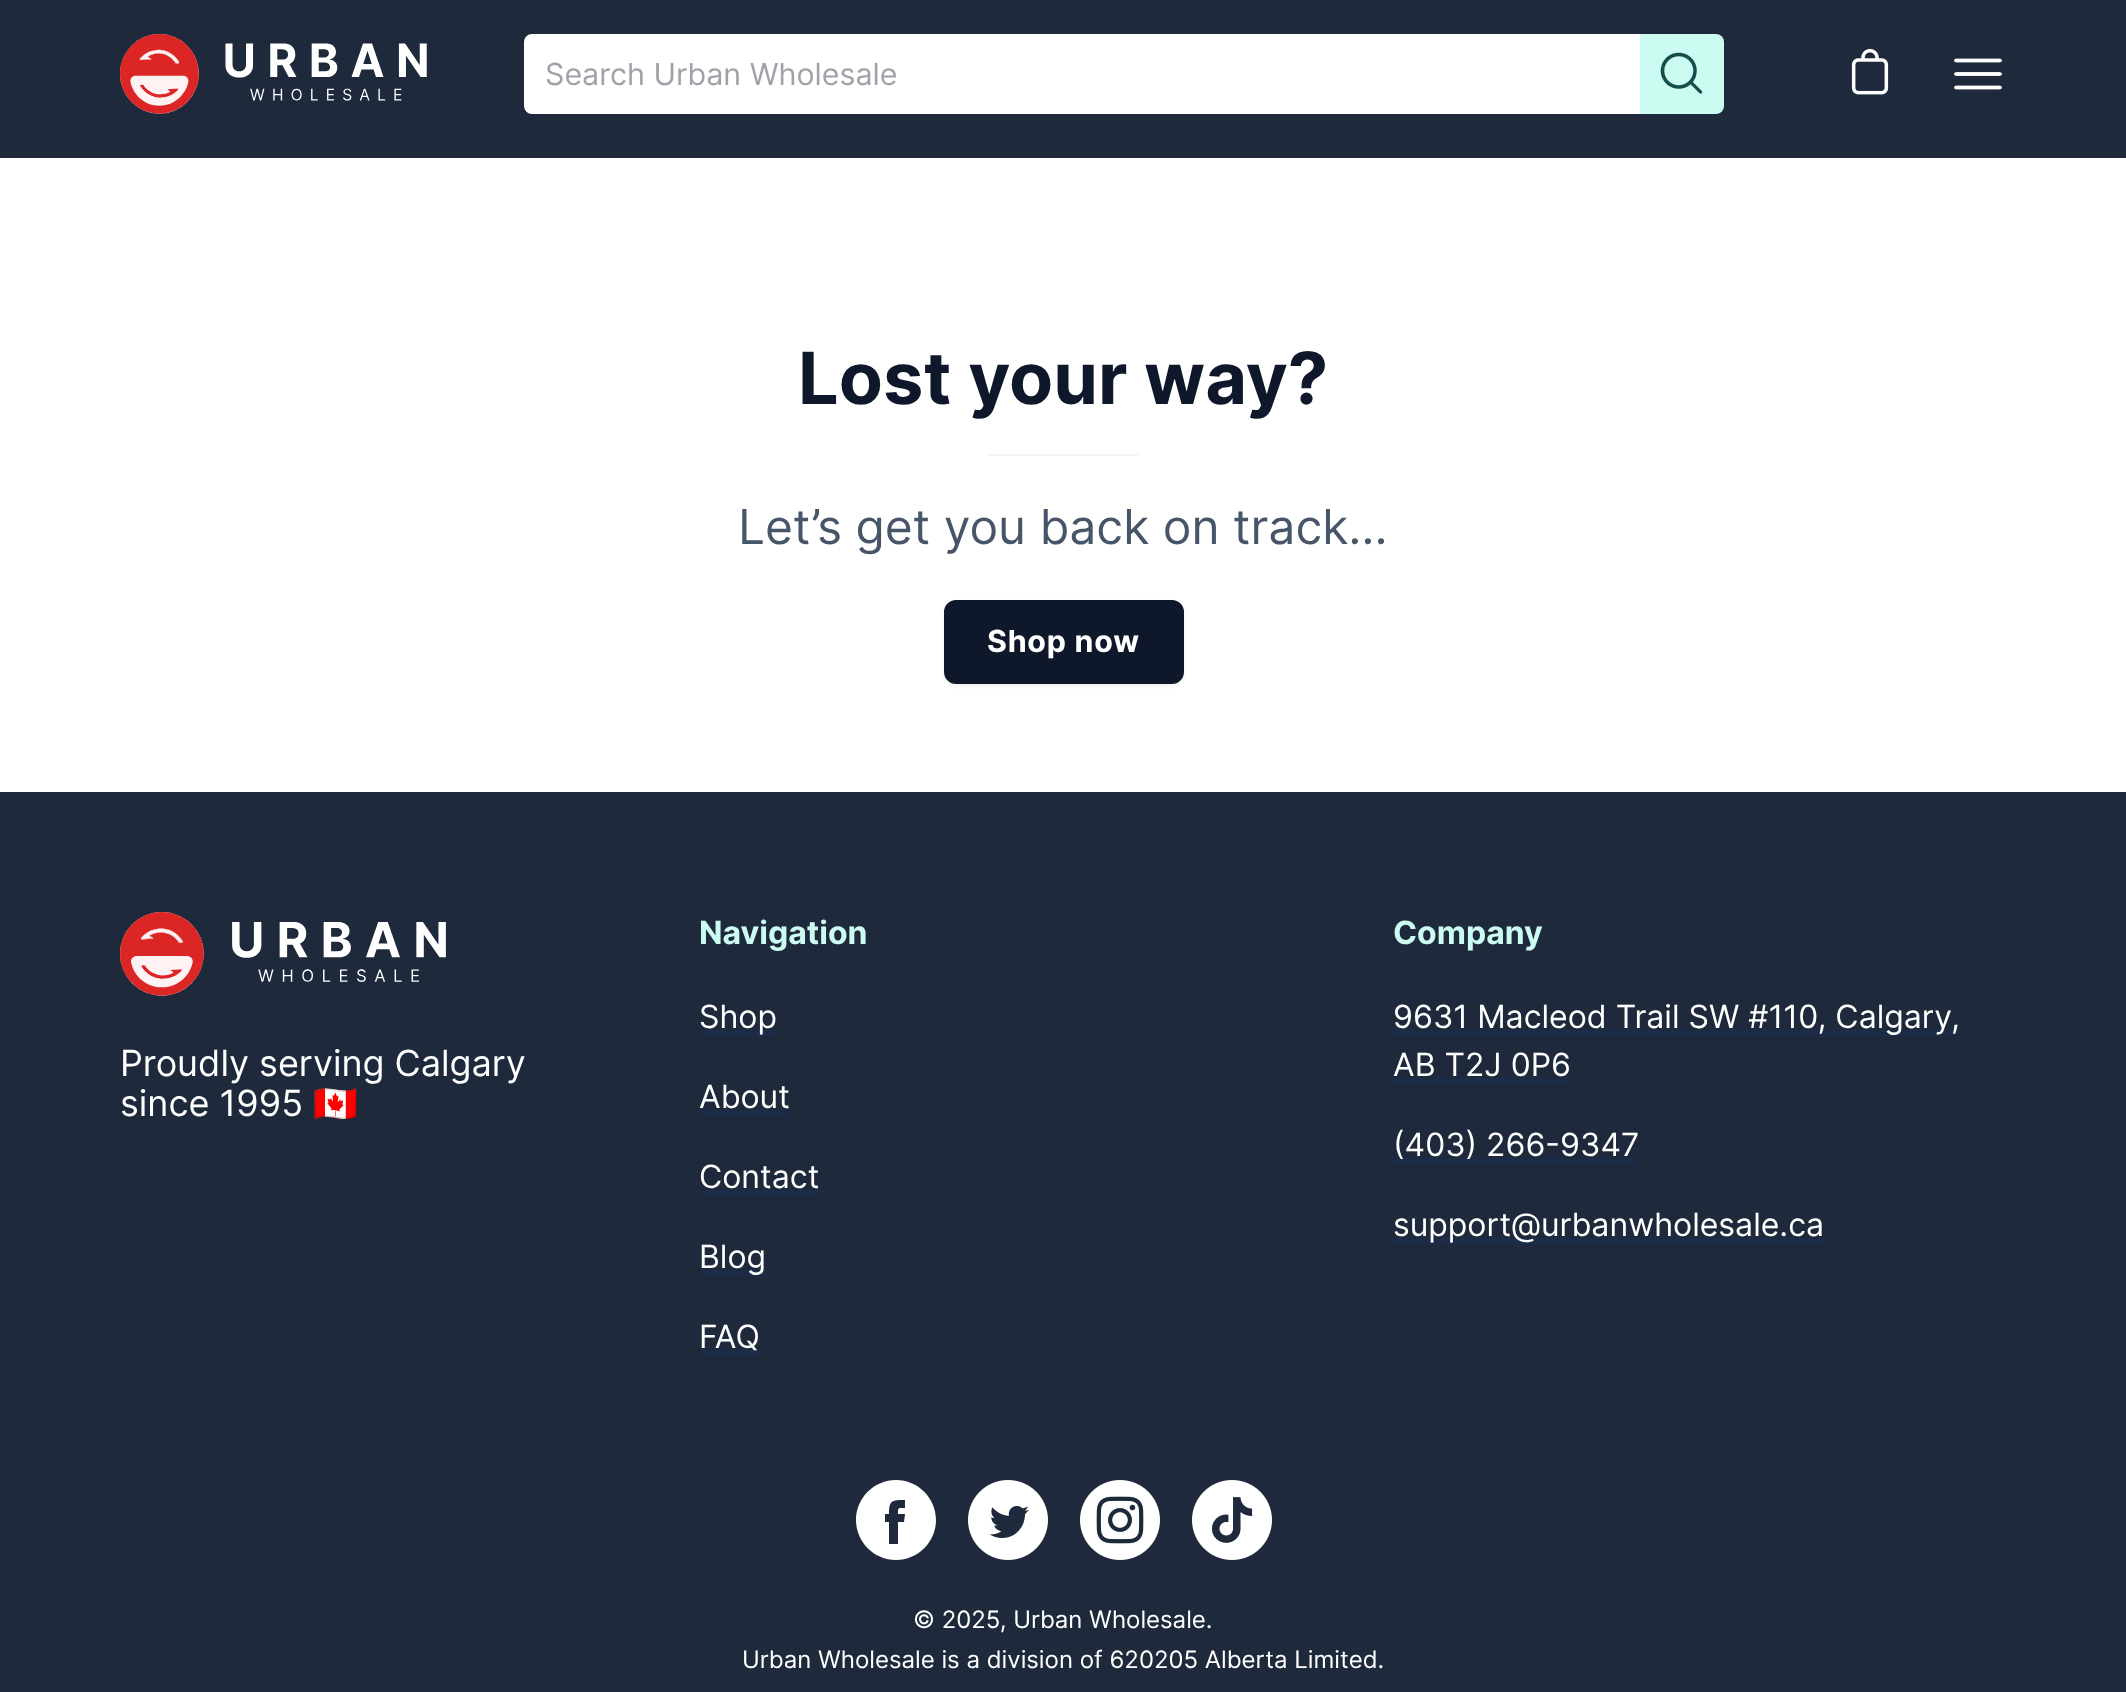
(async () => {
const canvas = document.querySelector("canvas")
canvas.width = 2126
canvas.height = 1692
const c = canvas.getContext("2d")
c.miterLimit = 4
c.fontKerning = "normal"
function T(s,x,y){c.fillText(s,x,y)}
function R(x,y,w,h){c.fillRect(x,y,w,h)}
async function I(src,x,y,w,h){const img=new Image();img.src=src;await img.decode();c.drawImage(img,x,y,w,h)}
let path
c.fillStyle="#fff"
R(0,0,2126,1692)
c.fillStyle="#1e293b"
R(0,0,2126,158)
await I("1.png",120,34,307,80)
c.fillStyle="#fff"
c.beginPath()
c.roundRect(525,35,1114,78,[7,0,0,7])
c.fill()
c.strokeStyle="#fff"
c.lineWidth=2
c.stroke()
c.font="30.4px Inter"
c.fillStyle="#a1a1aa"
T("Search Urban Wholesale",545,85)
c.fillStyle="#ccfbf1"
c.beginPath()
c.roundRect(1640,34,84,80,[0,8,8,0])
c.fill()
await I("2.png",1660,52,43,42)
await I("3.png",1851,48,38,47)
await I("4.png",1954,58,48,32)
c.font="bold 72px Inter"
c.fillStyle="#0f172a"
T("Lost your way?",798,404)
c.fillStyle="#f1f5f9"
R(988,454,150,2)
c.font="48px Inter"
c.fillStyle="#475569"
T("Let’s get you back on track…",738,544)
c.fillStyle="#0000000d"
c.filter="blur(2px)"
c.beginPath()
c.roundRect(944,602,240,84,12)
c.fill()
c.filter="none"
c.fillStyle="#0f172a"
c.beginPath()
c.roundRect(945,601,238,82,11)
c.fill()
c.strokeStyle="#0f172a"
c.stroke()
c.letterSpacing="0.75px"
c.font="bold 30.4px Inter"
c.fillStyle="#fff"
T("Shop now",987,652)
c.fillStyle="#1e293b"
R(0,792,2126,900)
await I("5.png",120,912,326,84)
c.letterSpacing="0px"
c.font="36px Inter"
c.fillStyle="#fff"
T("Proudly serving Calgary",120,1076)
T("since 1995",120,1116)
c.font="36px Noto Color Emoji"
T("🇨🇦",313,1116)
c.font="bold 32px Inter"
c.fillStyle="#ccfbf1"
T("Navigation",699,944)
c.fillStyle="#1c2b47"
R(700,1030,78,6)
c.font="32px Inter"
c.fillStyle="#fff"
T("Shop",699,1028)
T("About",699,1108)
c.fillStyle="#1c2b47"
R(700,1110,90,6)
c.fillStyle="#fff"
T("Contact",699,1188)
c.fillStyle="#1c2b47"
R(700,1190,120,6)
R(700,1270,66,6)
c.fillStyle="#fff"
T("Blog",699,1268)
c.fillStyle="#1c2b47"
R(700,1350,60,6)
c.fillStyle="#fff"
T("FAQ",699,1348)
c.font="bold 32px Inter"
c.fillStyle="#ccfbf1"
T("Company",1393,944)
c.fillStyle="#1c2b47"
R(1392,1030,568,6)
c.font="32px Inter"
c.fillStyle="#fff"
T("9631 Macleod Trail SW #110, Calgary,",1393,1028)
T("AB T2J 0P6",1393,1076)
c.fillStyle="#1c2b47"
R(1392,1078,178,6)
R(1392,1158,246,6)
c.fillStyle="#fff"
T("(403) 266-9347",1393,1156)
c.fillStyle="#1c2b47"
R(1392,1238,432,6)
c.fillStyle="#fff"
T("support@urbanwholesale.ca",1393,1236)
path = new Path2D("M856 1520c0-22 18-40 40-40c22 0 40 18 40 40c0 22-18 40-40 40c-22 0-40-18-40-40zm42 24v-22h6l1-8h-7c0-7 0-6 7-6v-8c-13 0-16 0-16 14h-4v8h4v22z")
c.fill(path)
await I("6.png",968,1480,80,80)
await I("7.png",1080,1480,80,80)
await I("8.png",1192,1480,80,80)
c.font="24px Inter"
T("© 2025, Urban Wholesale.",913,1628)
T("Urban Wholesale is a division of 620205 Alberta Limited.",742,1668)
})()
